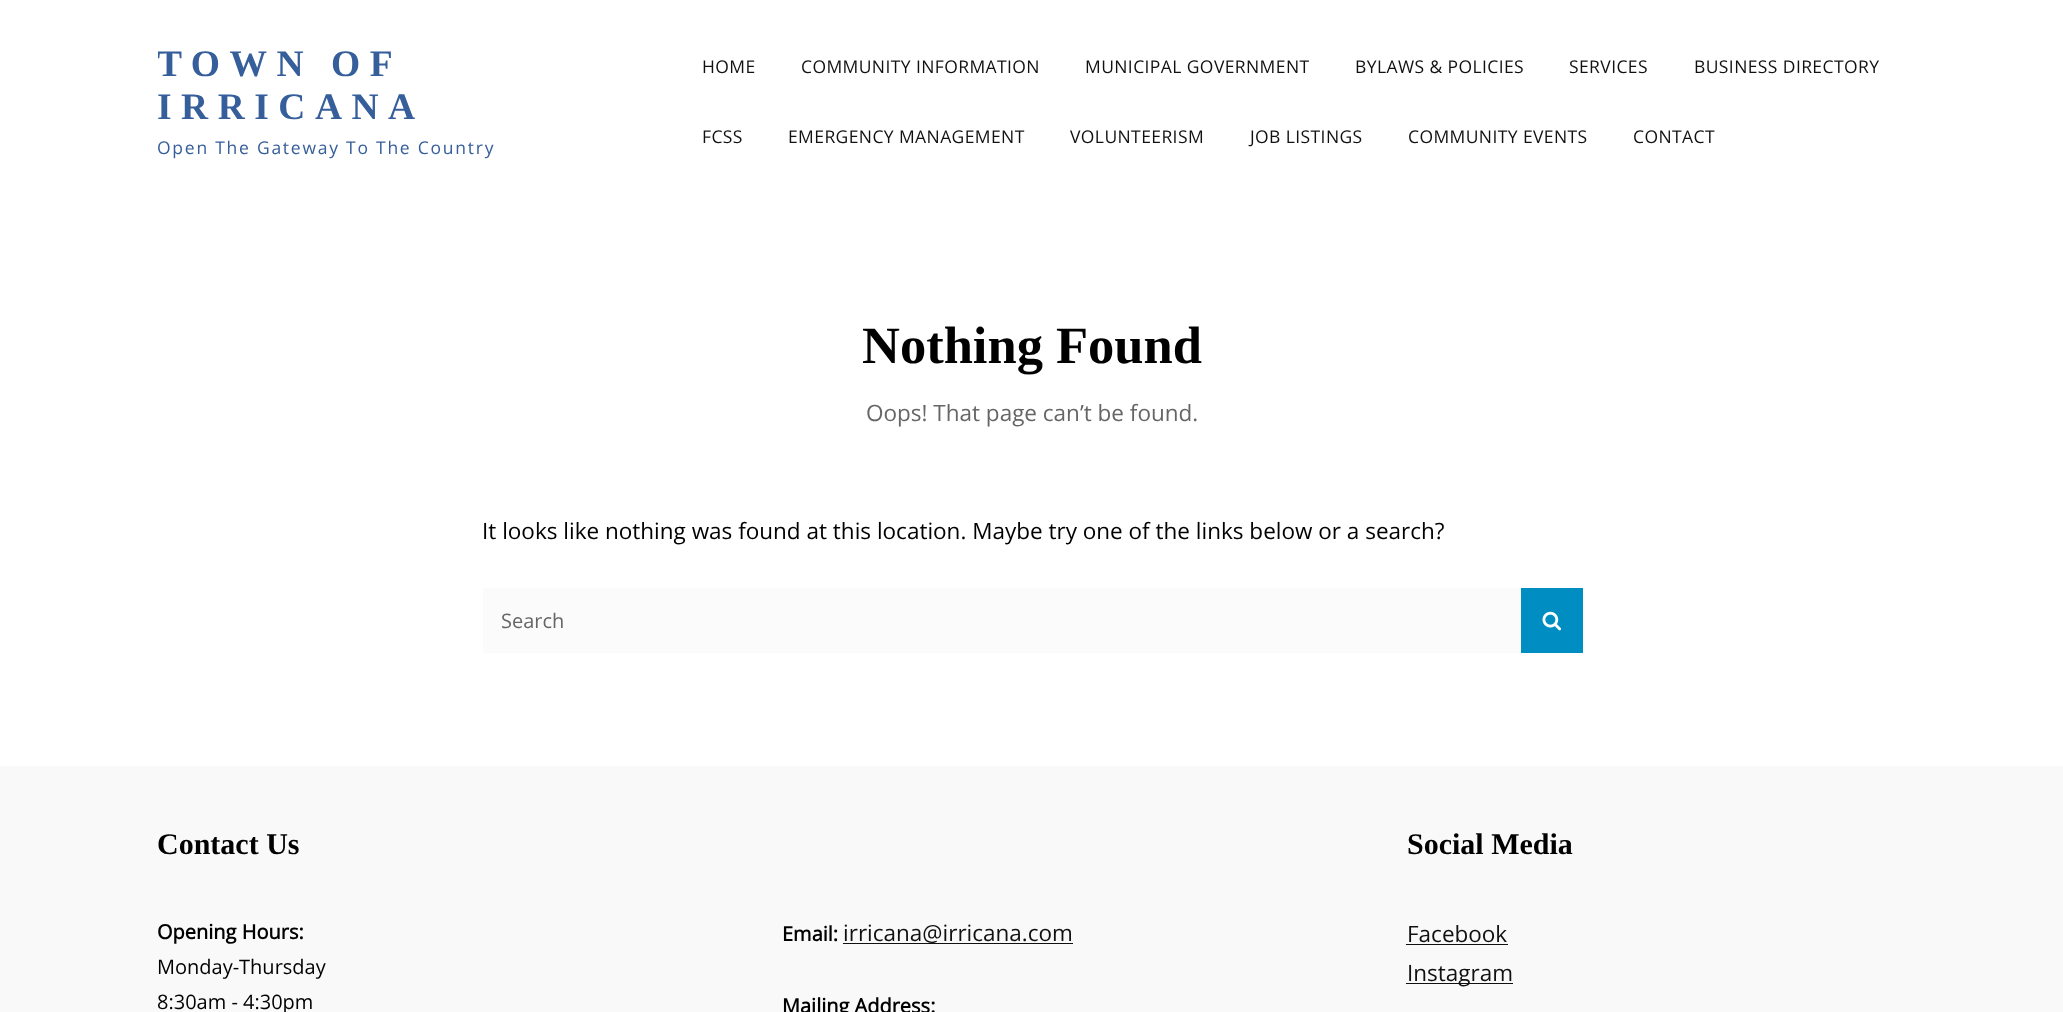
(async () => {
const canvas = document.querySelector("canvas")
canvas.width = 2063
canvas.height = 1012
const c = canvas.getContext("2d")
c.miterLimit = 4
c.fontKerning = "normal"
function T(s,x,y){c.fillText(s,x,y)}
function R(x,y,w,h){c.fillRect(x,y,w,h)}
async function I(src,x,y,w,h){const img=new Image();img.src=src;await img.decode();c.drawImage(img,x,y,w,h)}
c.fillStyle="#fff"
R(0,0,2063,1012)
c.save()
c.beginPath()
c.rect(158,43,525,117)
c.clip()
c.letterSpacing="9.5px"
c.wordSpacing="-1px"
c.font="bold 37.5px Liberation Serif"
c.fillStyle="#355e9b"
T("TOWN OF",157,76)
c.restore()
c.letterSpacing="9.5px"
c.font="bold 37.5px Liberation Serif"
c.fillStyle="#355e9b"
T("IRRICANA",157,119)
c.letterSpacing="1.75px"
c.font="17.5px Open Sans"
T("Open The Gateway To The Country",157,154)
c.letterSpacing="0.4px"
c.fillStyle="#111"
T("HOME",702,73)
T("COMMUNITY INFORMATION",801,73)
T("MUNICIPAL GOVERNMENT",1085,73)
T("BYLAWS & POLICIES",1355,73)
T("SERVICES",1569,73)
T("BUSINESS DIRECTORY",1694,73)
T("FCSS",702,143)
T("EMERGENCY MANAGEMENT",788,143)
T("VOLUNTEERISM",1070,143)
T("JOB LISTINGS",1250,143)
T("COMMUNITY EVENTS",1408,143)
T("CONTACT",1633,143)
c.letterSpacing="0px"
c.font="bold 52.5px Liberation Serif"
c.fillStyle="#000"
T("Nothing Found",862,363)
c.font="22.5px Open Sans"
c.fillStyle="#666"
T("Oops! That page can’t be found.",866,421)
c.fillStyle="#000"
T("It looks like nothing was found at this location. Maybe try one of the links below or a search?",482,539)
c.fillStyle="#fbfbfb"
R(483,588,1038,65)
c.font="20px Open Sans"
c.fillStyle="#666"
T("Search",501,628)
c.fillStyle="#008ec2"
R(1521,588,62,65)
await I("1.png",1542,611,19,20)
c.fillStyle="#f9f9f9"
R(0,766,2063,246)
c.font="bold 30px Liberation Serif"
c.fillStyle="#000"
T("Contact Us",157,854)
c.font="bold 20px Open Sans"
T("Opening Hours:",157,939)
c.font="20px Open Sans"
T("Monday-Thursday",157,974)
T("8:30am - 4:30pm",157,1009)
c.font="bold 20px Open Sans"
T("Email:",782,941)
c.font="22.5px Open Sans"
c.fillStyle="#111"
T("irricana@irricana.com",843,941)
R(843,943,230,1)
c.font="bold 20px Open Sans"
c.fillStyle="#000"
T("Mailing Address:",782,1013)
c.font="bold 30px Liberation Serif"
T("Social Media",1407,854)
c.font="22.5px Open Sans"
c.fillStyle="#111"
T("Facebook",1407,942)
R(1406,944,102,1)
R(1406,983,107,1)
T("Instagram",1407,981)
})()
